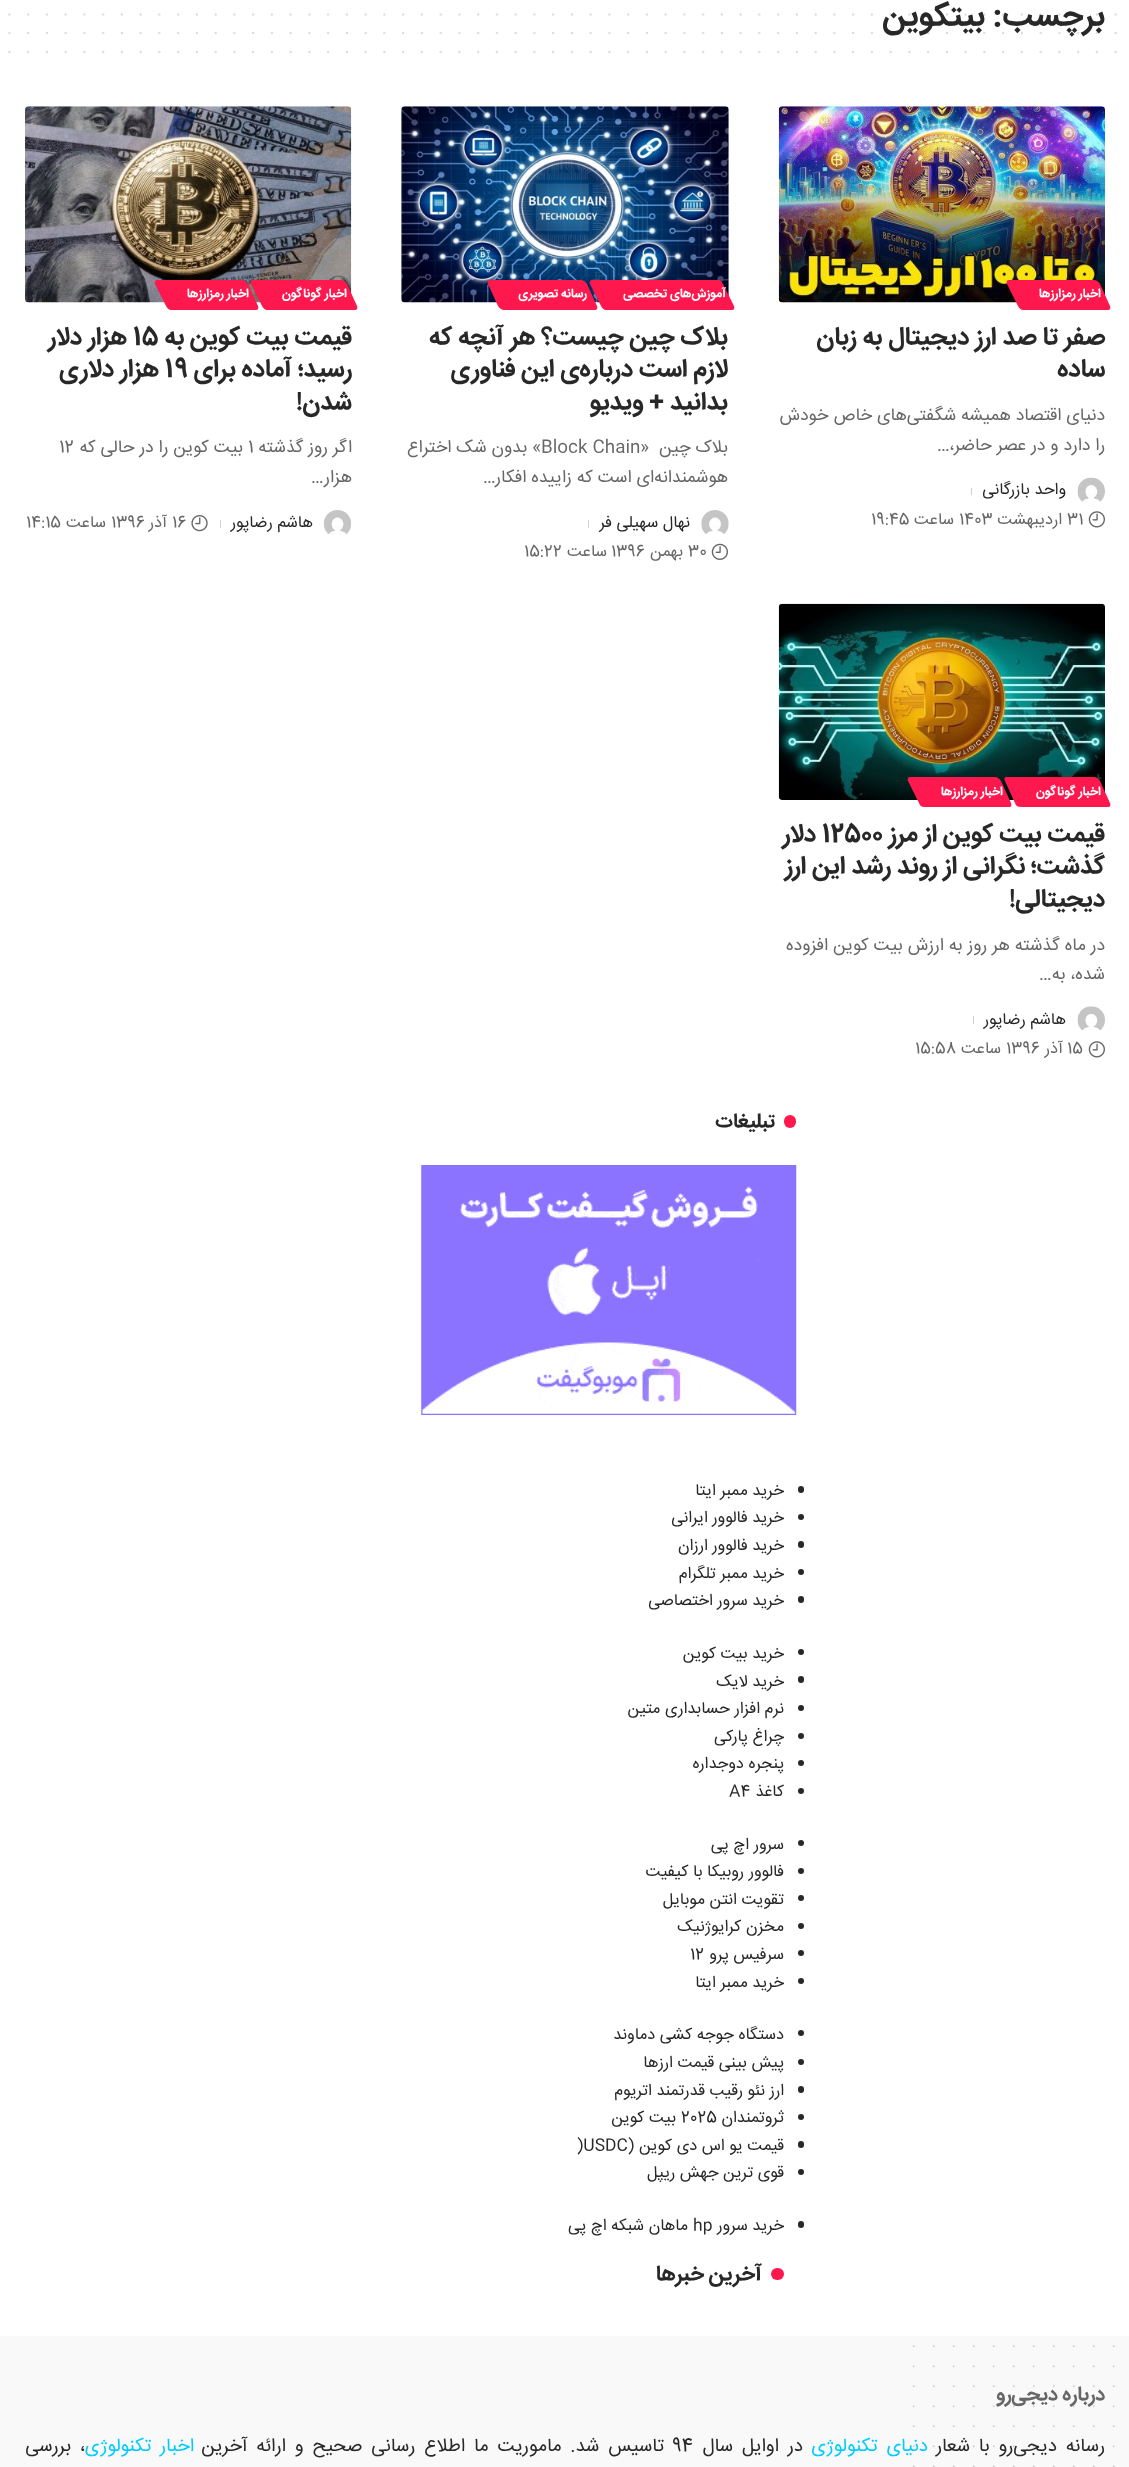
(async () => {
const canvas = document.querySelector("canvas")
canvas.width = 1129
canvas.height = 2467
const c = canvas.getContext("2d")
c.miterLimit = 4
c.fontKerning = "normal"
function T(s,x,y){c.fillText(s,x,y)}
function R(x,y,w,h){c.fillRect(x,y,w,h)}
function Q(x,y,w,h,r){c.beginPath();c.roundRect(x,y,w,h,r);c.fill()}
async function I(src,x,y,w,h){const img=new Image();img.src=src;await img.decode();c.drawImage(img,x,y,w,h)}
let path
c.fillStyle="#fff"
R(0,0,1129,2467)
c.direction="rtl"
c.font="bold 32.5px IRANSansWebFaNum"
c.fillStyle="#282828"
T("برچسب:",1105,25)
T("بیتکوین",985,25)
path = new Path2D("M9.4 14.4h1106.5")
c.strokeStyle="#28282826"
c.lineWidth=2.5
c.lineCap="round"
c.setLineDash([0,18.75])
c.stroke(path)
path = new Path2D("M9.4 33.1h1106.5")
c.stroke(path)
path = new Path2D("M9.4 51.9h1106.5")
c.strokeStyle="#dfdfdf"
c.stroke(path)
await I("1.png",778,106,327,197)
c.fillStyle="#ff184e"
path = new Path2D("M1009 280h85c2 0 5 2 6 4l10 22c1 2 0 4-2 4h-85c-2 0-4-2-5-4l-11-22c-1-2 0-4 2-4z")
c.fill(path)
c.letterSpacing="0.9px"
c.wordSpacing="-1px"
c.font="bold 12.5px IRANSansWebFaNum"
c.fillStyle="#fff"
T("اخبار رمزارزها",1101,297)
c.letterSpacing="0px"
c.wordSpacing="0px"
c.font="bold 25px IRANSansWebFaNum"
c.fillStyle="#282828"
T("صفر تا صد ارز دیجیتال به زبان",1105,344)
T("ساده",1105,376)
c.font="17.5px IRANSansWebFaNum"
c.fillStyle="#676767"
T("دنیای اقتصاد همیشه شگفتی‌های خاص خودش",1105,420)
T("را دارد و در عصر حاضر،",1105,450)
c.direction="ltr"
T("…",937,450)
await I("2.png",1077,477,28,25)
c.direction="rtl"
c.font="16.25px IRANSansWebFaNum"
c.fillStyle="#282828"
T("واحد بازرگانی",1066,494)
c.fillStyle="#d1d1d1"
R(971,488,1,7)
await I("3.png",1088,511,17,17)
c.direction="ltr"
c.fillStyle="#676767"
T("31",1067,524)
c.direction="rtl"
T("اردیبهشت",1062,524)
c.direction="ltr"
T("1403",959,524)
c.direction="rtl"
T("ساعت",954,524)
c.direction="ltr"
T("19:45",871,524)
await I("4.png",401,106,328,197)
c.fillStyle="#ff184e"
path = new Path2D("M592 280h126c2 0 4 2 5 4l11 22c1 2 0 4-2 4h-126c-2 0-4-2-5-4l-11-22c-1-2 0-4 2-4z")
c.fill(path)
c.letterSpacing="0.9px"
c.wordSpacing="-1px"
c.direction="rtl"
c.font="bold 12.5px IRANSansWebFaNum"
c.fillStyle="#fff"
T("آموزش‌های تخصصی",726,297)
c.fillStyle="#ff184e"
path = new Path2D("M490 280h91c2 0 5 2 6 4l10 22c1 2 0 4-2 4h-91c-2 0-5-2-6-4l-10-22c-1-2 0-4 2-4z")
c.fill(path)
c.fillStyle="#fff"
T("رسانه تصویری",587,297)
c.letterSpacing="0px"
c.wordSpacing="0px"
c.font="bold 25px IRANSansWebFaNum"
c.fillStyle="#282828"
T("بلاک چین چیست؟ هر آنچه که",728,344)
T("لازم است درباره‌ی این فناوری",728,376)
T("بدانید + ویدیو",728,409)
c.font="17.5px IRANSansWebFaNum"
c.fillStyle="#676767"
T("بلاک چین  «",728,452)
c.direction="ltr"
T("Block Chain",541,452)
c.direction="rtl"
T("» بدون شک اختراع",541,452)
T("هوشمندانه‌ای است که زاییده افکار",728,482)
c.direction="ltr"
T("…",483,482)
await I("5.png",701,510,28,24)
c.direction="rtl"
c.font="16.25px IRANSansWebFaNum"
c.fillStyle="#282828"
T("نهال سهیلی فر",690,527)
c.fillStyle="#d1d1d1"
R(588,520,1,8)
await I("6.png",711,543,17,17)
c.direction="ltr"
c.fillStyle="#676767"
T("30",688,556)
c.direction="rtl"
T("بهمن",683,556)
c.direction="ltr"
T("1396",611,556)
c.direction="rtl"
T("ساعت",607,556)
c.direction="ltr"
T("15:22",524,556)
await I("7.png",25,106,327,197)
c.fillStyle="#ff184e"
path = new Path2D("M253 280h88c2 0 5 2 6 4l10 22c1 2 0 4-2 4h-88c-2 0-4-2-5-4l-11-22c-1-2 0-4 2-4z")
c.fill(path)
c.letterSpacing="0.9px"
c.wordSpacing="-1px"
c.direction="rtl"
c.font="bold 12.5px IRANSansWebFaNum"
c.fillStyle="#fff"
T("اخبار گوناگون",347,297)
c.fillStyle="#ff184e"
path = new Path2D("M157 280h85c2 0 5 2 6 4l10 22c1 2 0 4-2 4h-85c-2 0-4-2-5-4l-11-22c-1-2 0-4 2-4z")
c.fill(path)
c.fillStyle="#fff"
T("اخبار رمزارزها",249,297)
c.letterSpacing="0px"
c.wordSpacing="0px"
c.font="bold 25px IRANSansWebFaNum"
c.fillStyle="#282828"
T("قیمت بیت کوین به",352,344)
c.direction="ltr"
T("15",133,344)
c.direction="rtl"
T("هزار دلار",127,344)
T("رسید؛ آماده برای",352,376)
c.direction="ltr"
T("19",165,376)
c.direction="rtl"
T("هزار دلاری",159,376)
T("شدن!",352,409)
c.font="17.5px IRANSansWebFaNum"
c.fillStyle="#676767"
T("اگر روز گذشته",352,452)
c.direction="ltr"
T("1",248,452)
c.direction="rtl"
T("بیت کوین را در حالی که",243,452)
c.direction="ltr"
T("12",59,452)
c.direction="rtl"
T("هزار",352,482)
c.direction="ltr"
T("…",311,482)
await I("8.png",324,510,27,25)
c.direction="rtl"
c.font="16.25px IRANSansWebFaNum"
c.fillStyle="#282828"
T("هاشم رضاپور",313,527)
c.fillStyle="#d1d1d1"
R(220,520,1,8)
await I("9.png",191,515,17,17)
c.direction="ltr"
c.fillStyle="#676767"
T("16",172,527)
c.direction="rtl"
T("آذر",167,527)
c.direction="ltr"
T("1396",111,527)
c.direction="rtl"
T("ساعت",106,527)
c.direction="ltr"
T("14:15",26,527)
await I("10.png",778,603,327,197)
c.fillStyle="#ff184e"
path = new Path2D("M1007 777h87c2 0 5 2 6 4l10 22c1 3 0 4-2 4h-87c-3 0-5-1-6-4l-10-22c-1-2-1-4 2-4z")
c.fill(path)
c.letterSpacing="0.9px"
c.wordSpacing="-1px"
c.direction="rtl"
c.font="bold 12.5px IRANSansWebFaNum"
c.fillStyle="#fff"
T("اخبار گوناگون",1101,795)
c.fillStyle="#ff184e"
path = new Path2D("M910 777h85c2 0 5 2 6 4l10 22c1 3 0 4-2 4h-85c-2 0-4-1-5-4l-11-22c-1-2 0-4 2-4z")
c.fill(path)
c.fillStyle="#fff"
T("اخبار رمزارزها",1003,795)
c.letterSpacing="0px"
c.wordSpacing="0px"
c.font="bold 25px IRANSansWebFaNum"
c.fillStyle="#282828"
T("قیمت بیت کوین از مرز",1105,841)
c.direction="ltr"
T("12500",822,841)
c.direction="rtl"
T("دلار",816,841)
T("گذشت؛ نگرانی از روند رشد این ارز",1105,873)
T("دیجیتالی!",1105,906)
c.font="17.5px IRANSansWebFaNum"
c.fillStyle="#676767"
T("در ماه گذشته هر روز به ارزش بیت‌ کوین افزوده",1105,950)
T("شده، به",1105,979)
c.direction="ltr"
T("…",1039,979)
await I("11.png",1077,1006,28,25)
c.direction="rtl"
c.font="16.25px IRANSansWebFaNum"
c.fillStyle="#282828"
T("هاشم رضاپور",1066,1024)
c.fillStyle="#d1d1d1"
R(973,1016,1,8)
await I("3.png",1088,1041,17,17)
c.direction="ltr"
c.fillStyle="#676767"
T("15",1067,1053)
c.direction="rtl"
T("آذر",1063,1053)
c.direction="ltr"
T("1396",1006,1053)
c.direction="rtl"
T("ساعت",1001,1053)
c.direction="ltr"
T("15:58",915,1053)
c.fillStyle="#ff184e"
Q(784,1115,12,13,6)
c.direction="rtl"
c.font="bold 20px IRANSansWebFaNum"
c.fillStyle="#282828"
T("تبلیغات",775,1127)
await I("12.png",421,1165,376,250)
Q(798,1486,6,7,3)
c.font="16.25px IRANSansWebFaNum"
T("خرید ممبر ایتا",784,1495)
c.beginPath()
c.arc(801,1517,3,0,7)
c.fill()
T("خرید فالوور ایرانی",784,1522)
Q(798,1541,6,7,3)
T("خرید فالوور ارزان",784,1550)
c.beginPath()
c.arc(801,1572,3,0,7)
c.fill()
T("خرید ممبر تلگرام",784,1578)
Q(798,1596,6,7,3)
T("خرید سرور اختصاصی",784,1605)
c.beginPath()
c.arc(801,1652,3,0,7)
c.fill()
T("خرید بیت کوین",784,1658)
Q(798,1676,6,7,3)
T("خرید لایک",784,1686)
c.beginPath()
c.arc(801,1708,3,0,7)
c.fill()
T("نرم افزار حسابداری متین",784,1713)
c.beginPath()
c.arc(801,1736,3,0,7)
c.fill()
T("چراغ پارکی",784,1741)
c.beginPath()
c.arc(801,1763,3,0,7)
c.fill()
T("پنجره دوجداره",784,1768)
c.beginPath()
c.arc(801,1791,3,0,7)
c.fill()
T("کاغذ",784,1796)
c.direction="ltr"
T("A4",729,1796)
c.beginPath()
c.arc(801,1843,3,0,7)
c.fill()
c.direction="rtl"
T("سرور اچ پی",784,1849)
c.beginPath()
c.arc(801,1871,3,0,7)
c.fill()
T("فالوور روبیکا با کیفیت",784,1876)
c.beginPath()
c.arc(801,1898,3,0,7)
c.fill()
T("تقویت انتن موبایل",784,1904)
c.beginPath()
c.arc(801,1926,3,0,7)
c.fill()
T("مخزن کرایوژنیک",784,1931)
c.beginPath()
c.arc(801,1953,3,0,7)
c.fill()
T("سرفیس پرو",784,1959)
c.direction="ltr"
T("12",690,1959)
c.beginPath()
c.arc(801,1981,3,0,7)
c.fill()
c.direction="rtl"
T("خرید ممبر ایتا",784,1987)
c.beginPath()
c.arc(801,2033,3,0,7)
c.fill()
T("دستگاه جوجه کشی دماوند",784,2039)
c.beginPath()
c.arc(801,2062,3,0,7)
c.fill()
T("پیش بینی قیمت ارزها",784,2067)
Q(798,2086,6,7,3)
T("ارز نئو رقیب قدرتمند اتریوم",784,2095)
c.beginPath()
c.arc(801,2117,3,0,7)
c.fill()
T("ثروتمندان",784,2122)
c.direction="ltr"
T("2025",681,2122)
c.direction="rtl"
T("بیت کوین",676,2122)
Q(798,2141,6,7,3)
T("قیمت یو اس دی کوین (",784,2150)
c.direction="ltr"
T(")USDC",577,2150)
c.beginPath()
c.arc(801,2172,3,0,7)
c.fill()
c.direction="rtl"
T("قوی ترین جهش ریپل",784,2177)
Q(798,2221,6,7,3)
T("خرید سرور",784,2230)
c.direction="ltr"
T("hp",693,2230)
c.direction="rtl"
T("ماهان شبکه اچ پی",688,2230)
c.fillStyle="#ff184e"
Q(771,2268,13,12,6)
c.font="bold 21.25px IRANSansWebFaNum"
c.fillStyle="#282828"
T("آخرین خبرها",762,2280)
c.fillStyle="#f9f9f9"
R(0,2336,1129,131)
path = new Path2D("M913.8 2346.2h200.2")
c.strokeStyle="#cfcfcf"
c.lineWidth=1.9
c.setLineDash([0,20])
c.stroke(path)
path = new Path2D("M913.8 2366.2h200.2")
c.stroke(path)
path = new Path2D("M913.8 2386.2h200.2")
c.stroke(path)
path = new Path2D("M913.8 2406.2h200.2")
c.stroke(path)
path = new Path2D("M913.8 2426.2h200.2")
c.stroke(path)
path = new Path2D("M913.8 2446.2h200.2")
c.stroke(path)
path = new Path2D("M913.8 2466.2h200.2")
c.stroke(path)
c.font="bold 20px IRANSansWebFaNum"
c.fillStyle="#676767"
T("درباره دیجی‌رو",1105,2400)
c.wordSpacing="3.5px"
c.font="18.75px IRANSansWebFaNum"
c.fillStyle="#282828"
T("رسانه دیجی‌رو با شعار",1105,2451)
c.fillStyle="#0cf"
T("دنیای تکنولوژی",928,2451)
c.fillStyle="#282828"
T("در اوایل سال",803,2451)
c.wordSpacing="0px"
c.direction="ltr"
T("94",672,2451)
c.wordSpacing="3.5px"
c.direction="rtl"
T("تاسیس شد. ماموریت ما اطلاع رسانی صحیح و ارائه آخرین",664,2451)
c.fillStyle="#0cf"
T("اخبار تکنولوژی",194,2451)
c.fillStyle="#282828"
T("، بررسی",85,2451)
})()
